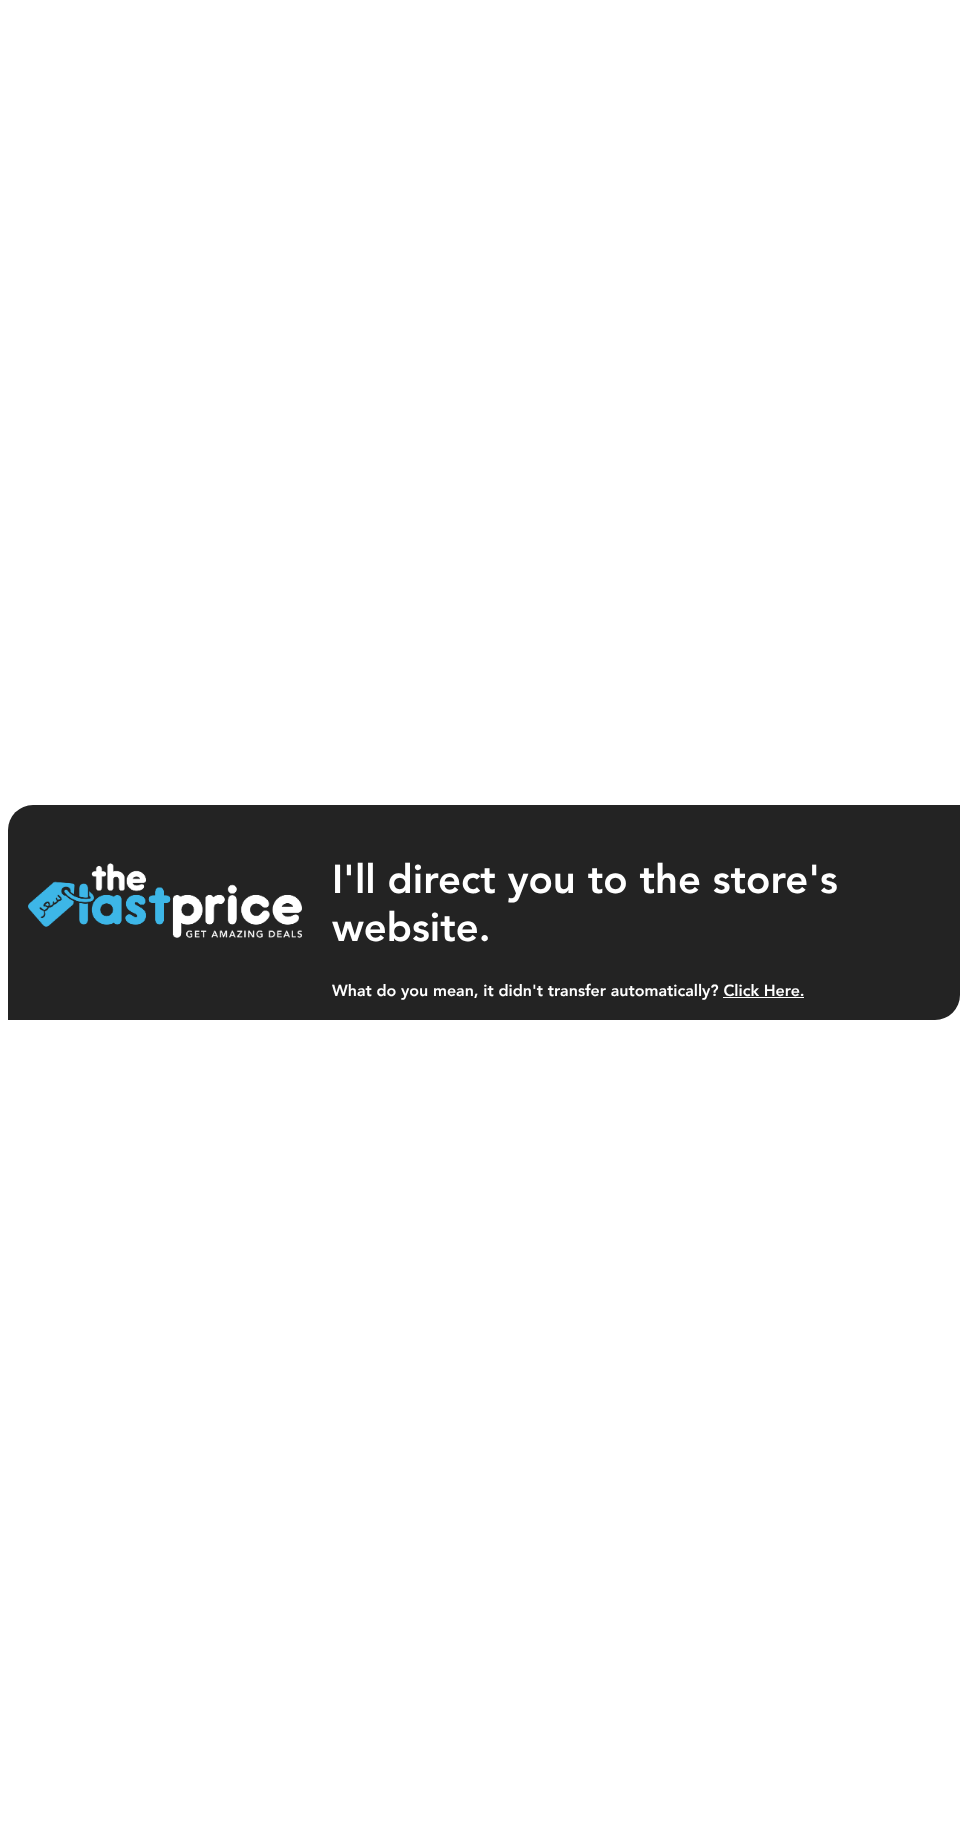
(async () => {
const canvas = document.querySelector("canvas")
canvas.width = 968
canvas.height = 1824
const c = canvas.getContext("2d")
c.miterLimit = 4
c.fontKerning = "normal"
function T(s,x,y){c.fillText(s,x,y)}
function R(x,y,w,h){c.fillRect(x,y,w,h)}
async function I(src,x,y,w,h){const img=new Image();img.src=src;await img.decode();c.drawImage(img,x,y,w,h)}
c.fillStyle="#fff"
R(0,0,968,1824)
c.fillStyle="#232323"
c.beginPath()
c.roundRect(8,805,952,215,[25,0,25,0])
c.fill()
await I("1.png",28,863,274,75)
c.font="900 40px 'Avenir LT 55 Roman'"
c.fillStyle="#fff"
T("I'll direct you to the store's",332,893)
T("website.",332,941)
c.font="900 16px 'Avenir LT 55 Roman'"
T("What do you mean, it didn't transfer automatically? Click Here.",332,996)
R(723,997,81,1)
})()
